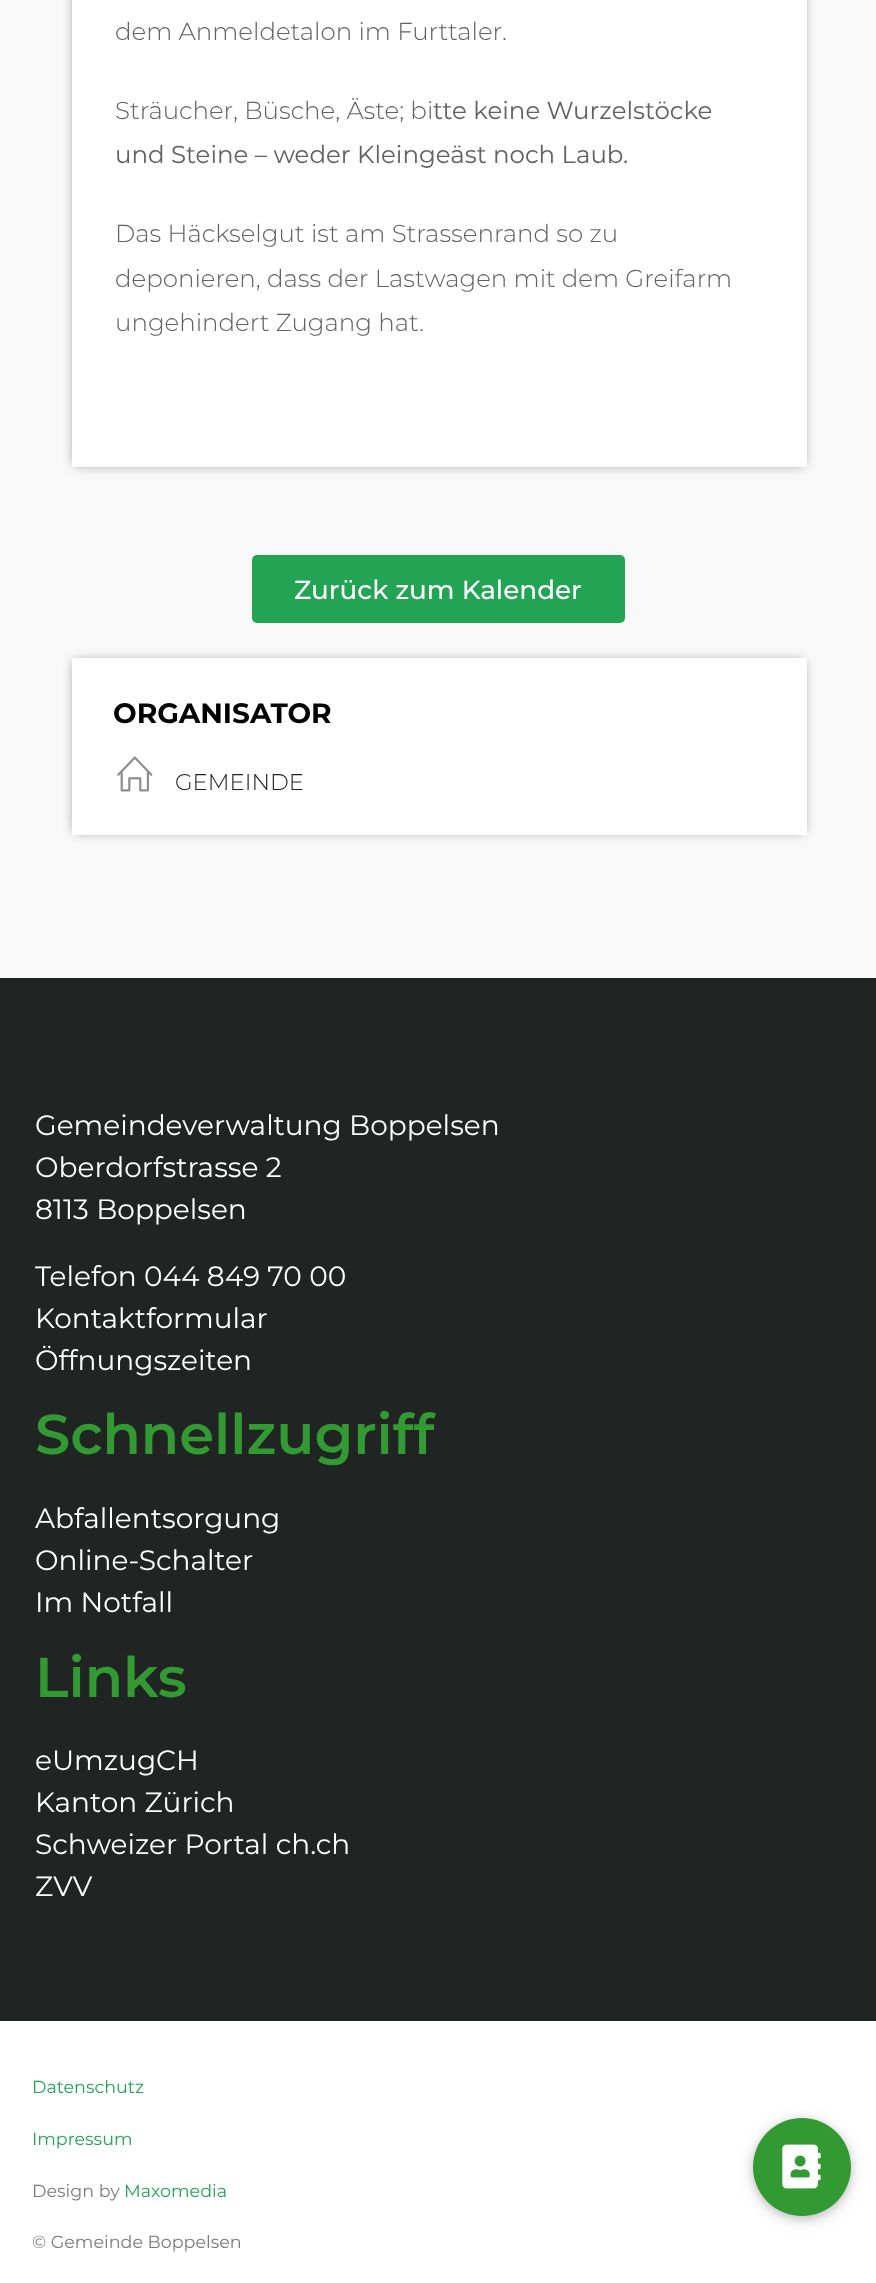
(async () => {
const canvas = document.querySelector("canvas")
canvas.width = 876
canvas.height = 2283
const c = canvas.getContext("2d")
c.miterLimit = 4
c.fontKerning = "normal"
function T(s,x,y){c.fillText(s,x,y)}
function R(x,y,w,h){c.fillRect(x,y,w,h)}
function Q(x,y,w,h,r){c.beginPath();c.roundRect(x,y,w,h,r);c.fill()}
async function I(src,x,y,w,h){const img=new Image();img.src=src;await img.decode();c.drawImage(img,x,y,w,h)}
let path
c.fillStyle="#f8f8f8"
R(0,0,876,2283)
c.fillStyle="#fff"
R(72,0,735,467)
c.save()
path = new Path2D("M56 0h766v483h-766zm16-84h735v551h-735z")
c.clip(path,"evenodd")
c.fillStyle="#00000080"
c.filter="blur(6px)"
c.beginPath()
c.rect(75,-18,728,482)
c.fill()
c.filter="none"
c.restore()
c.font="300 24.5px Montserrat"
c.fillStyle="#616161"
T("dem Anmeldetalon im Furttaler.",115,40)
T("Sträucher, Büsche, Äste; bi",115,119)
c.font="24.5px Montserrat"
T("tte keine Wurzelstöcke",433,119)
T("und Steine – weder Kleingeäst noch Laub.",115,163)
c.font="300 24.5px Montserrat"
T("Das Häckselgut ist am Strassenrand so zu",115,242)
T("deponieren, dass der Lastwagen mit dem Greifarm",115,287)
T("ungehindert Zugang hat.",115,331)
c.fillStyle="#23a455"
Q(252,555,373,68,5)
c.font="500 26.25px Montserrat"
c.fillStyle="#fff"
T("Zurück zum Kalender",294,599)
c.fillStyle="#00000080"
c.filter="blur(6px)"
c.beginPath()
c.rect(75,662,728,169)
c.fill()
c.filter="none"
c.fillStyle="#fff"
R(72,658,735,177)
c.font="bold 28px Montserrat"
c.fillStyle="#000"
T("ORGANISATOR",113,723)
await I("1.png",117,756,36,36)
c.font="300 22.75px Montserrat"
c.fillStyle="#222"
T("GEMEINDE",175,790)
c.fillStyle="#202422"
R(0,978,876,1043)
c.font="28px Montserrat"
c.fillStyle="#fff"
T("Gemeindeverwaltung Boppelsen",35,1135)
T("Oberdorfstrasse 2",35,1177)
T("8113 Boppelsen",35,1219)
T("Telefon 044 849 70 00",35,1286)
T("Kontaktformular",35,1328)
T("Öffnungszeiten",35,1370)
c.font="600 56px Montserrat"
c.fillStyle="#393"
T("Schnellzugriff",35,1454)
c.font="28px Montserrat"
c.fillStyle="#fff"
T("Abfallentsorgung",35,1528)
T("Online-Schalter",35,1570)
T("Im Notfall",35,1612)
c.font="600 56px Montserrat"
c.fillStyle="#393"
T("Links",35,1697)
c.font="28px Montserrat"
c.fillStyle="#fff"
T("eUmzugCH",35,1770)
T("Kanton Zürich",35,1812)
T("Schweizer Portal ch.ch",35,1854)
T("ZVV",35,1896)
R(0,2021,876,262)
c.font="17.5px Montserrat"
c.fillStyle="#23a455"
T("Datenschutz",32,2093)
T("Impressum",32,2145)
c.fillStyle="#7a7a7a"
T("Design by",32,2197)
c.fillStyle="#23a455"
T("Maxomedia",124,2197)
c.fillStyle="#7a7a7a"
T("© Gemeinde Boppelsen",32,2248)
c.fillStyle="#0000001f"
c.filter="blur(9px)"
c.beginPath()
c.roundRect(753,2121,98,98,49)
c.fill()
c.filter="none"
c.fillStyle="#00000029"
c.filter="blur(4.5px)"
c.beginPath()
c.roundRect(753,2121,98,98,49)
c.fill()
c.filter="none"
c.fillStyle="#393"
c.beginPath()
c.arc(802,2167,49,0,7)
c.fill()
await I("2.png",782,2144,39,45)
})()
